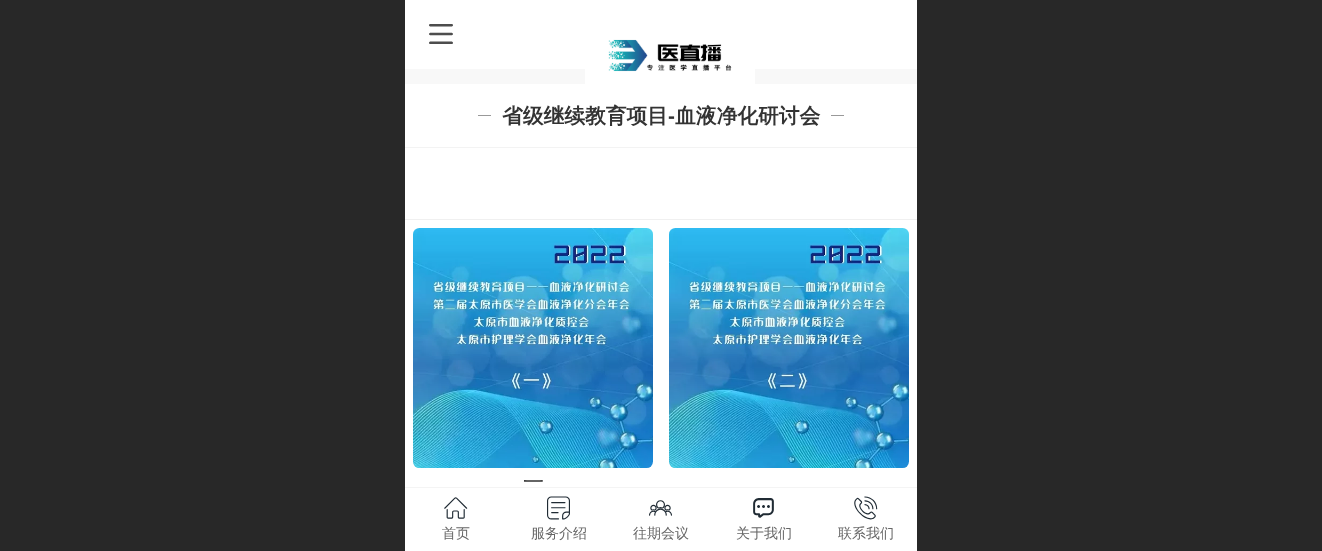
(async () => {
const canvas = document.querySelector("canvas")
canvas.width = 1322
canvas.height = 551
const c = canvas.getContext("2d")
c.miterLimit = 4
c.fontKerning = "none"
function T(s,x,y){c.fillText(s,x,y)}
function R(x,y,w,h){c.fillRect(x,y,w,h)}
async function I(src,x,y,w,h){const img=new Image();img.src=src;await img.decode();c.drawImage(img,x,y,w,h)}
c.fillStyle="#f8f8f8"
R(0,0,1322,551)
c.fillStyle="#282828"
R(0,0,405,551)
c.fillStyle="#fff"
R(405,0,512,69)
await I("1.png",585,39,170,45)
c.font="24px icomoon"
c.fillStyle="#4d4d4d"
T("򰌲",429,44)
c.fillStyle="#fff"
R(405,84,512,63)
c.fillStyle="#f3f3f3"
R(405,147,512,1)
c.fillStyle="#999"
R(478,115,13,1)
c.font="bold 20.75px WenQuanYi Zen Hei"
c.fillStyle="#333"
T("省级继续教育项目",502,123)
c.font="bold 20.75px Liberation Sans"
T("-",668,123)
c.font="bold 20.75px WenQuanYi Zen Hei"
T("血液净化研讨会",675,123)
c.fillStyle="#999"
R(831,115,13,1)
c.fillStyle="#fff"
R(405,148,512,339)
c.fillStyle="#f0f0f0"
R(405,219,512,1)
await I("2.png",669,228,240,240)
await I("3.png",413,228,240,240)
c.font="500 21px WenQuanYi Zen Hei"
c.fillStyle="#333"
T("一",523,489)
c.fillStyle="#fff"
R(405,488,512,63)
c.fillStyle="#f4f4f4"
R(405,487,512,1)
c.font="23px icomoon"
c.fillStyle="#202b34"
T("򠡀",444,518)
c.font="500 14px WenQuanYi Zen Hei"
c.fillStyle="#666"
T("首页",442,538)
c.font="23px icomoon"
c.fillStyle="#202b34"
T("򡁧",547,518)
c.font="500 14px WenQuanYi Zen Hei"
c.fillStyle="#666"
T("服务介绍",531,538)
c.font="23px icomoon"
c.fillStyle="#202b34"
T("򠍈",649,518)
c.font="500 14px WenQuanYi Zen Hei"
c.fillStyle="#666"
T("往期会议",633,538)
c.font="23px icomoon"
c.fillStyle="#202b34"
T("򡂅",752,518)
c.font="500 14px WenQuanYi Zen Hei"
c.fillStyle="#666"
T("关于我们",736,538)
c.font="23px icomoon"
c.fillStyle="#202b34"
T("򠤉",854,518)
c.font="500 14px WenQuanYi Zen Hei"
c.fillStyle="#666"
T("联系我们",838,538)
c.fillStyle="#282828"
R(917,0,405,551)
})()
